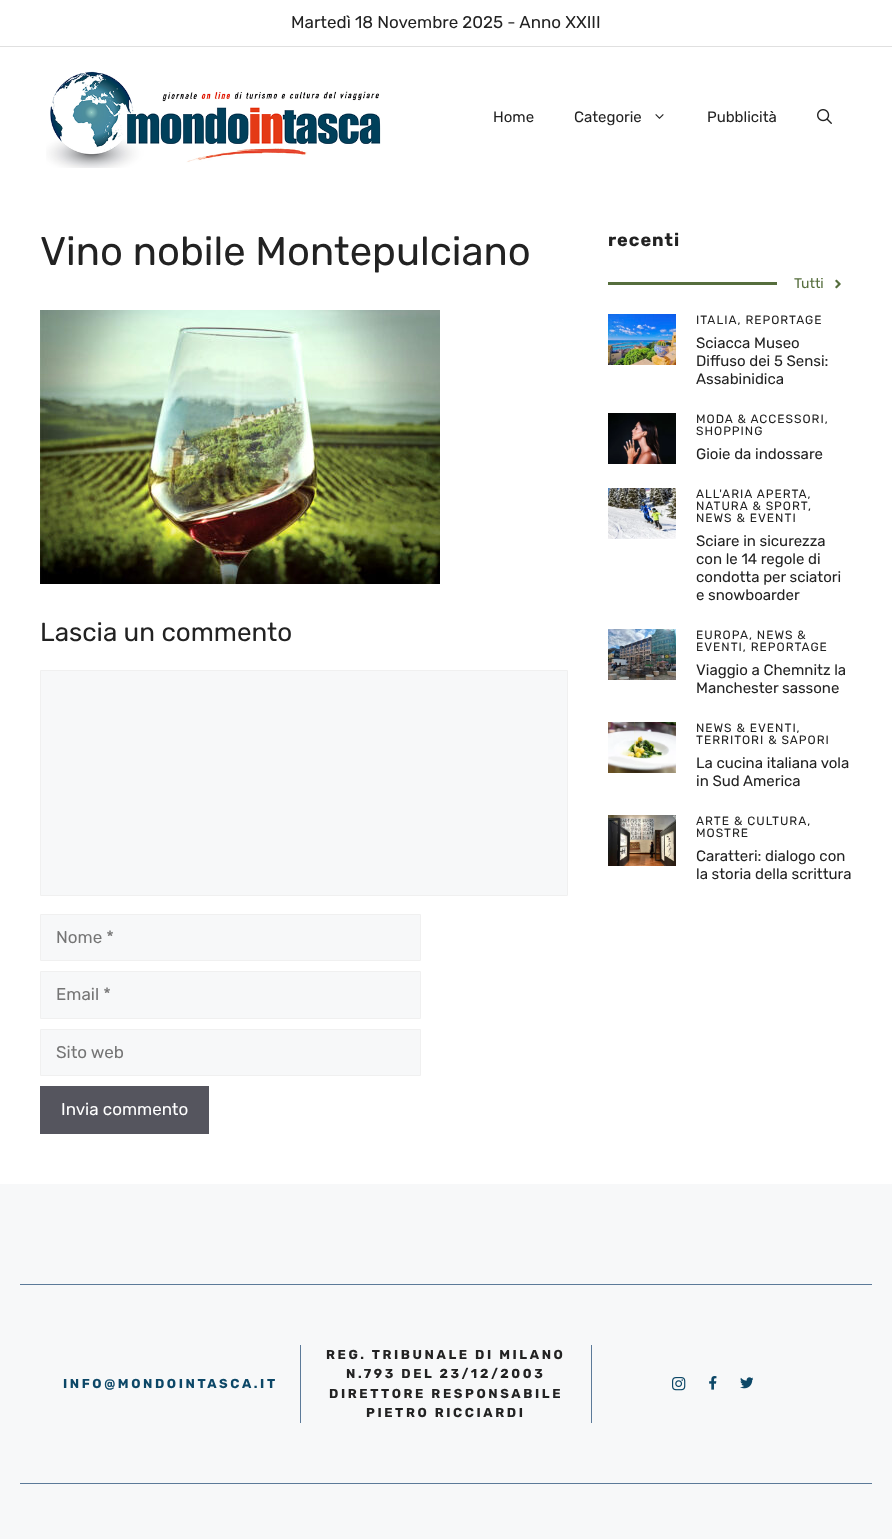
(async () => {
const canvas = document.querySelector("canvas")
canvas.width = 892
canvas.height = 1539
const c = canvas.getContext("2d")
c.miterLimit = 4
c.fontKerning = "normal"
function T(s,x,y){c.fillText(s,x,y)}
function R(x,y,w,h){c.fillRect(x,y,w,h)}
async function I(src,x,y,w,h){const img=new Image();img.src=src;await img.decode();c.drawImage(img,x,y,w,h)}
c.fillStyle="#fff"
R(0,0,892,1539)
c.fillStyle="#e0e0e0"
R(0,46,892,1)
c.font="17px Rubik"
c.fillStyle="#222"
T("Martedì 18 Novembre 2025 - Anno XXIII",291,28)
await I("1.png",46,71,335,97)
c.font="15px Rubik"
T("Home",493,122)
T("Categorie",574,122)
await I("2.png",655,114,9,5)
T("Pubblicità",707,122)
await I("3.png",817,109,15,15)
c.font="40px Rubik"
T("Vino nobile Montepulciano",40,265)
await I("4.png",40,310,400,274)
c.font="26px Rubik"
T("Lascia un commento",40,641)
c.fillStyle="#f7f8f9"
c.beginPath()
c.rect(40.5,670.5,527,225)
c.fill()
c.strokeStyle="#f0f0f0"
c.stroke()
c.beginPath()
c.rect(40.5,914.5,380,46)
c.fill()
c.stroke()
c.font="17px Rubik"
c.fillStyle="#757575"
T("Nome *",56,943)
c.fillStyle="#f7f8f9"
c.beginPath()
c.rect(40.5,971.5,380,47)
c.fill()
c.stroke()
c.fillStyle="#757575"
T("Email *",56,1000)
c.fillStyle="#f7f8f9"
c.beginPath()
c.rect(40.5,1029.5,380,46)
c.fill()
c.stroke()
c.fillStyle="#757575"
T("Sito web",56,1058)
c.fillStyle="#55555e"
R(40,1086,169,48)
c.fillStyle="#fff"
T("Invia commento",61,1115)
c.letterSpacing="1px"
c.font="bold 18px Rubik"
c.fillStyle="#222"
T("recenti",608,246)
c.fillStyle="#566e3d"
R(608,282,169,3)
c.letterSpacing="0px"
c.font="14px Rubik"
T("Tutti",794,288)
await I("5.png",835,279,6,10)
await I("6.png",608,314,68,51)
c.letterSpacing="1px"
c.font="12px Rubik"
c.fillStyle="#222"
T("ITALIA, REPORTAGE",696,324)
c.letterSpacing="0px"
c.font="15px Rubik"
T("Sciacca Museo",696,348)
T("Diffuso dei 5 Sensi:",696,366)
T("Assabinidica",696,384)
await I("7.png",608,413,68,51)
c.letterSpacing="1px"
c.font="12px Rubik"
T("MODA & ACCESSORI,",696,423)
T("SHOPPING",696,435)
c.letterSpacing="0px"
c.font="15px Rubik"
T("Gioie da indossare",696,459)
await I("8.png",608,488,68,51)
c.letterSpacing="1px"
c.font="12px Rubik"
T("ALL'ARIA APERTA,",696,498)
T("NATURA & SPORT",696,510)
T(",",808,510)
T("NEWS & EVENTI",696,522)
c.letterSpacing="0px"
c.font="15px Rubik"
T("Sciare in sicurezza",696,546)
T("con le 14 regole di",696,564)
T("condotta per sciatori",696,582)
T("e snowboarder",696,600)
await I("9.png",608,629,68,51)
c.letterSpacing="1px"
c.font="12px Rubik"
T("EUROPA, NEWS &",696,639)
T("EVENTI, REPORTAGE",696,651)
c.letterSpacing="0px"
c.font="15px Rubik"
T("Viaggio a Chemnitz la",696,675)
T("Manchester sassone",696,693)
await I("10.png",608,722,68,51)
c.letterSpacing="1px"
c.font="12px Rubik"
T("NEWS & EVENTI,",696,732)
T("TERRITORI & SAPORI",696,744)
c.letterSpacing="0px"
c.font="15px Rubik"
T("La cucina italiana vola",696,768)
T("in Sud America",696,786)
await I("11.png",608,815,68,51)
c.letterSpacing="1px"
c.font="12px Rubik"
T("ARTE & CULTURA,",696,825)
T("MOSTRE",696,837)
c.letterSpacing="0px"
c.font="15px Rubik"
T("Caratteri: dialogo con",696,861)
T("la storia della scrittura",696,879)
c.fillStyle="#f7f8f9"
R(0,1184,892,355)
c.fillStyle="#5c7a99"
R(20,1284,852,1)
R(20,1483,852,1)
c.letterSpacing="2.6px"
c.font="bold 13px Rubik"
c.fillStyle="#0c4767"
T("INFO@MONDOINTASCA.IT",63,1388)
c.fillStyle="#5c7a99"
R(591,1345,1,78)
R(300,1345,1,78)
c.fillStyle="#222"
T("REG. TRIBUNALE DI MILANO",326,1359)
T("N.793 DEL 23/12/2003",346,1378)
T("DIRETTORE RESPONSABILE",329,1398)
T("PIETRO RICCIARDI",366,1417)
await I("12.png",672,1377,14,14)
await I("13.png",709,1376,8,14)
await I("14.png",740,1377,13,12)
})()
